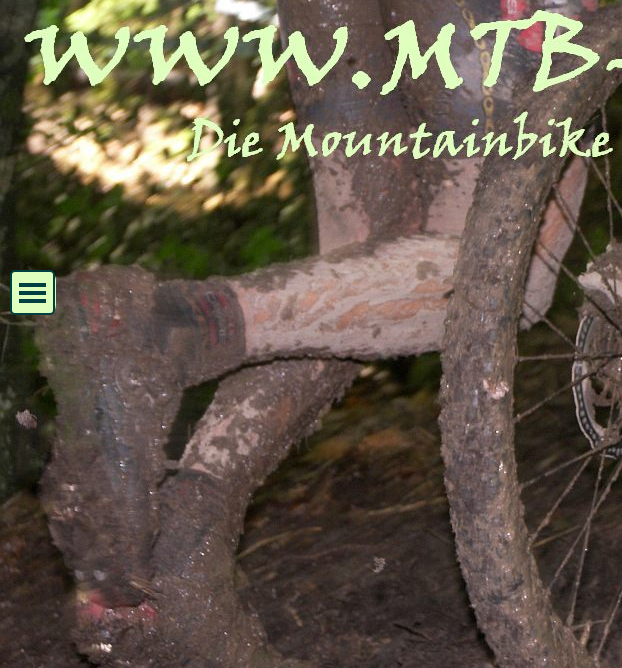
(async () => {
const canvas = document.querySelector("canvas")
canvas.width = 622
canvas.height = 668
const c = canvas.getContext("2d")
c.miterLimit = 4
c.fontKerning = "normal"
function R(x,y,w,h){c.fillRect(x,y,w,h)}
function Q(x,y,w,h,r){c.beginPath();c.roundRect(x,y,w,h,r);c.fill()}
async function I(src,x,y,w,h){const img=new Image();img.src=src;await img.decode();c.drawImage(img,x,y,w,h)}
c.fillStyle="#fff"
R(0,0,622,668)
await I("1.png",0,0,622,668)
c.fillStyle="#dfffbf"
Q(10,270,46,45,10)
c.beginPath()
c.roundRect(11,271,43,43,4)
c.fill()
c.strokeStyle="#004040"
c.lineWidth=2
c.stroke()
c.fillStyle="#004040"
R(19,283,27,4)
R(19,291,27,4)
R(19,299,27,4)
})()
